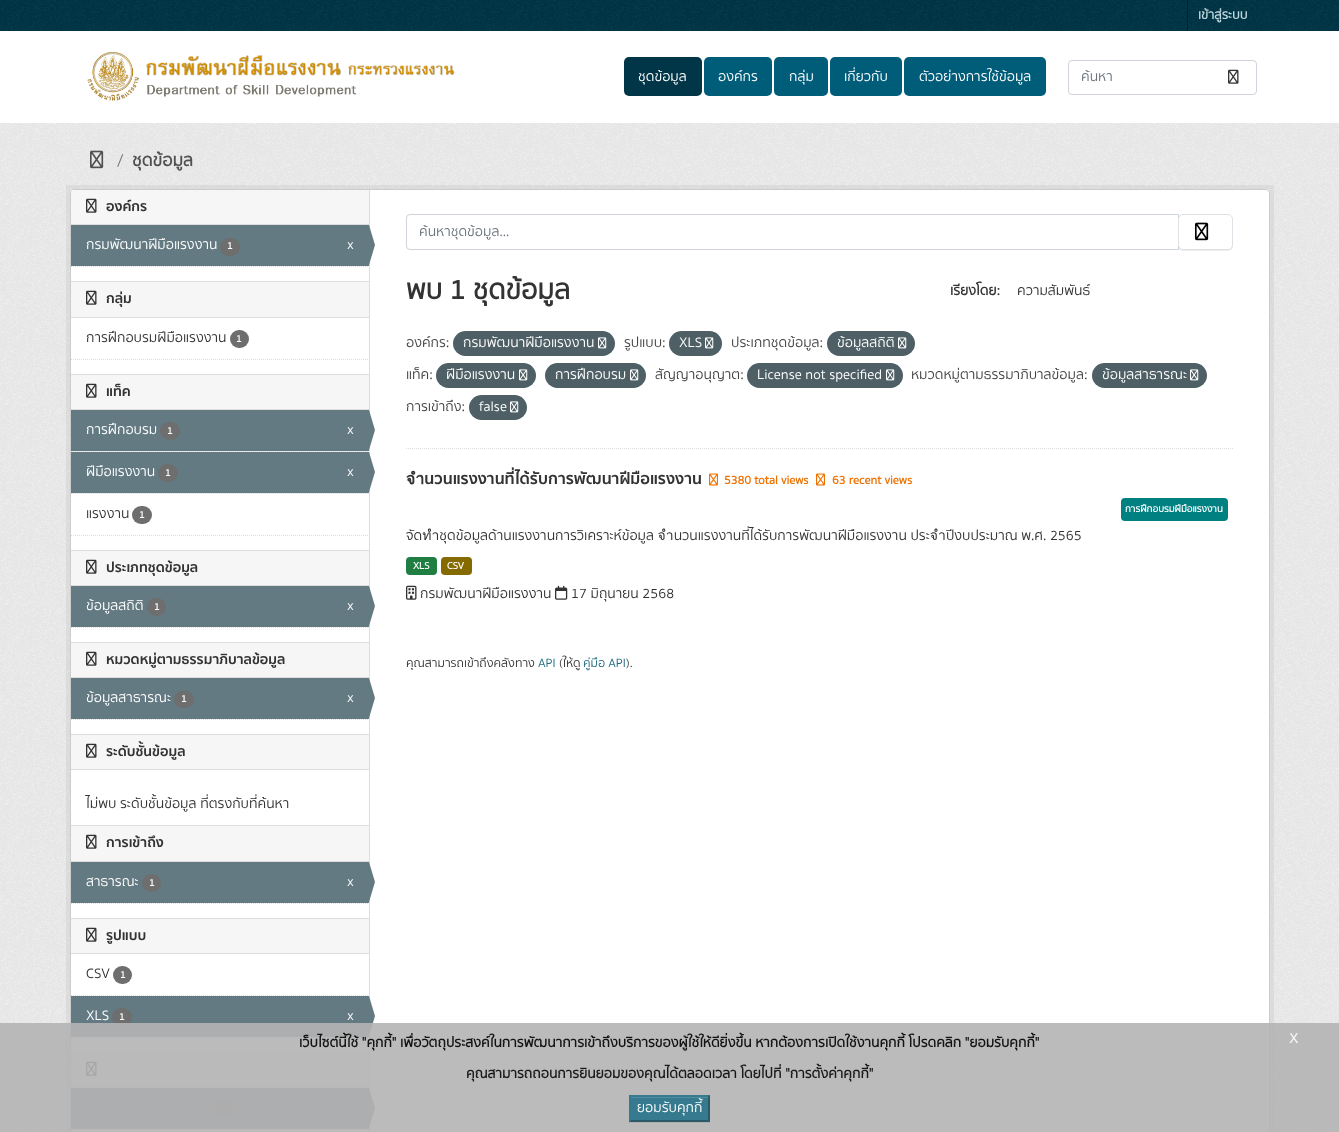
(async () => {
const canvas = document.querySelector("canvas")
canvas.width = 1339
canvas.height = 1132
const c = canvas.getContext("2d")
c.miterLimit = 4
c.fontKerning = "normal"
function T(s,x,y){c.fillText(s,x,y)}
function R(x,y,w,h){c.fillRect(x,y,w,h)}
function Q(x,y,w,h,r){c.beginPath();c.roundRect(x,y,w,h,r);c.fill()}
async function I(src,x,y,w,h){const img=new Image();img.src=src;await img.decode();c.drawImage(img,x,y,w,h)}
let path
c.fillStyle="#fff"
R(0,0,1339,1132)
c.fillStyle="#003647"
R(0,0,1339,31)
await I("1.png",0,0,1339,31)
c.fillStyle="#00232e"
R(1187,0,1,31)
c.font="bold 13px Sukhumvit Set"
c.fillStyle="#bfd7de"
T("เข้าสู่ระบบ",1198,19)
await I("2.png",87,52,368,49)
c.fillStyle="#003647"
Q(624,57,78,39,5)
c.font="14px Sukhumvit Set"
c.fillStyle="#fff"
T("ชุดข้อมูล",638,81)
c.fillStyle="#005d7a"
Q(704,57,68,39,5)
c.fillStyle="#fff"
T("องค์กร",718,81)
c.fillStyle="#005d7a"
Q(774,57,54,39,5)
c.fillStyle="#fff"
T("กลุ่ม",789,81)
c.fillStyle="#005d7a"
Q(830,57,72,39,5)
c.fillStyle="#fff"
T("เกี่ยวกับ",844,81)
c.fillStyle="#005d7a"
Q(904,57,142,39,5)
c.fillStyle="#fff"
T("ตัวอย่างการใช้ข้อมูล",919,81)
c.beginPath()
c.roundRect(1068.5,60.5,188,34,3.5)
c.strokeStyle="#ced4da"
c.stroke()
c.save()
c.beginPath()
c.rect(1081,67,163,20)
c.clip()
c.fillStyle="#6c757d"
T("ค้นหา",1081,81)
c.restore()
await I("3.png",1228,69,11,15)
c.fillStyle="#eee"
R(0,123,1339,1009)
await I("4.png",0,123,1339,1009)
await I("5.png",90,150,14,19)
c.font="17.5px Sukhumvit Set"
c.fillStyle="#6c757d"
T("/",117,166)
c.font="bold 17.5px Sukhumvit Set"
c.fillStyle="#505050"
T("ชุดข้อมูล",132,166)
c.strokeStyle="#0000000d"
c.lineWidth=4
c.strokeRect(68,187,1204,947)
c.fillStyle="#fff"
c.beginPath()
c.roundRect(70.5,189.5,1199,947,3.5)
c.fill()
c.strokeStyle="#ccc"
c.lineWidth=1
c.stroke()
c.fillStyle="#f6f6f6"
c.beginPath()
c.roundRect(71,190,298,35,[3,0,0,0])
c.fill()
c.fillStyle="#ddd"
R(71,224,298,1)
await I("6.png",86,198,11,15)
c.font="bold 14px 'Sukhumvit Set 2'"
c.fillStyle="#333"
T("องค์กร",106,211)
c.fillStyle="#647a82"
R(71,225,298,41)
c.font="14px Sukhumvit Set"
c.fillStyle="#fff"
T("กรมพัฒนาฝีมือแรงงาน",86,249)
c.fillStyle="#6e6e6e"
Q(220,238,20,18,9)
c.font="bold 10px Sukhumvit Set"
c.fillStyle="#fff"
T("1",227,249)
c.font="14px Sukhumvit Set"
T("x",347,249)
c.fillStyle="#ddd"
R(369,190,1,942)
c.fillStyle="#647a82"
path = new Path2D("M369 265v-40l6 20z")
c.fill(path)
path = new Path2D("M71 266.5h298")
c.strokeStyle="#ddd"
c.setLineDash([1,1])
c.stroke(path)
c.fillStyle="#f6f6f6"
R(71,282,298,35)
c.fillStyle="#ddd"
R(71,281,298,1)
R(71,317,298,1)
await I("6.png",86,290,11,15)
c.font="bold 14px 'Sukhumvit Set 2'"
c.fillStyle="#333"
T("กลุ่ม",106,303)
c.font="14px Sukhumvit Set"
T("การฝึกอบรมฝีมือแรงงาน",86,342)
c.fillStyle="#6e6e6e"
Q(230,330,19,18,9)
c.font="bold 10px Sukhumvit Set"
c.fillStyle="#fff"
T("1",236,342)
path = new Path2D("M71 359.5h298")
c.stroke(path)
c.fillStyle="#f6f6f6"
R(71,375,298,34)
c.fillStyle="#ddd"
R(71,374,298,1)
R(71,409,298,1)
await I("6.png",86,383,11,15)
c.font="bold 14px 'Sukhumvit Set 2'"
c.fillStyle="#333"
T("แท็ค",106,396)
c.fillStyle="#f6f6f6"
R(72,451,297,1)
path = new Path2D("M71 451.5h298")
c.stroke(path)
c.fillStyle="#647a82"
R(71,410,298,41)
c.font="14px Sukhumvit Set"
c.fillStyle="#fff"
T("การฝึกอบรม",86,434)
c.fillStyle="#6e6e6e"
Q(160,422,20,18,9)
c.font="bold 10px Sukhumvit Set"
c.fillStyle="#fff"
T("1",167,434)
c.font="14px Sukhumvit Set"
T("x",347,434)
c.fillStyle="#647a82"
path = new Path2D("M369 450v-40l6 20z")
c.fill(path)
c.fillStyle="#f6f6f6"
R(72,493,297,1)
path = new Path2D("M71 493.5h298")
c.stroke(path)
c.fillStyle="#647a82"
R(71,452,298,41)
c.fillStyle="#fff"
T("ฝีมือแรงงาน",86,476)
c.fillStyle="#6e6e6e"
Q(158,464,20,18,9)
c.font="bold 10px Sukhumvit Set"
c.fillStyle="#fff"
T("1",165,476)
c.font="14px Sukhumvit Set"
T("x",347,476)
c.fillStyle="#647a82"
path = new Path2D("M369 492v-40l6 20z")
c.fill(path)
c.fillStyle="#333"
T("แรงงาน",86,518)
c.fillStyle="#6e6e6e"
Q(132,506,20,18,9)
c.font="bold 10px Sukhumvit Set"
c.fillStyle="#fff"
T("1",139,518)
path = new Path2D("M71 535.5h298")
c.stroke(path)
c.fillStyle="#f6f6f6"
R(71,551,298,34)
c.fillStyle="#ddd"
R(71,550,298,1)
R(71,585,298,1)
await I("6.png",86,559,11,15)
c.font="bold 14px 'Sukhumvit Set 2'"
c.fillStyle="#333"
T("ประเภทชุดข้อมูล",106,572)
c.fillStyle="#647a82"
R(71,586,298,41)
c.font="14px Sukhumvit Set"
c.fillStyle="#fff"
T("ข้อมูลสถิติ",86,610)
c.fillStyle="#6e6e6e"
Q(147,598,19,18,9)
c.font="bold 10px Sukhumvit Set"
c.fillStyle="#fff"
T("1",154,610)
c.font="14px Sukhumvit Set"
T("x",347,610)
c.fillStyle="#647a82"
path = new Path2D("M369 626v-40l6 20z")
c.fill(path)
path = new Path2D("M71 627.5h298")
c.stroke(path)
c.fillStyle="#f6f6f6"
R(71,643,298,34)
c.fillStyle="#ddd"
R(71,642,298,1)
R(71,677,298,1)
await I("6.png",86,651,11,15)
c.font="bold 14px 'Sukhumvit Set 2'"
c.fillStyle="#333"
T("หมวดหมู่ตามธรรมาภิบาลข้อมูล",106,664)
c.fillStyle="#647a82"
R(71,678,298,41)
c.font="14px Sukhumvit Set"
c.fillStyle="#fff"
T("ข้อมูลสาธารณะ",86,702)
c.fillStyle="#6e6e6e"
Q(174,691,20,17,8.5)
c.font="bold 10px Sukhumvit Set"
c.fillStyle="#fff"
T("1",181,702)
c.font="14px Sukhumvit Set"
T("x",347,702)
c.fillStyle="#647a82"
path = new Path2D("M369 718v-40l6 20z")
c.fill(path)
path = new Path2D("M71 719.5h298")
c.stroke(path)
c.fillStyle="#f6f6f6"
R(71,735,298,34)
c.fillStyle="#ddd"
R(71,734,298,1)
R(71,769,298,1)
await I("6.png",86,743,11,15)
c.font="bold 14px 'Sukhumvit Set 2'"
c.fillStyle="#333"
T("ระดับชั้นข้อมูล",106,756)
c.font="14px Sukhumvit Set"
T("ไม่พบ ระดับชั้นข้อมูล ที่ตรงกับที่ค้นหา",86,808)
c.fillStyle="#f6f6f6"
R(71,826,298,35)
c.fillStyle="#ddd"
R(71,825,298,1)
R(71,861,298,1)
await I("6.png",86,834,11,15)
c.font="bold 14px 'Sukhumvit Set 2'"
c.fillStyle="#333"
T("การเข้าถึง",106,847)
c.fillStyle="#647a82"
R(71,862,298,41)
c.font="14px Sukhumvit Set"
c.fillStyle="#fff"
T("สาธารณะ",86,886)
c.fillStyle="#6e6e6e"
Q(142,874,19,18,9)
c.font="bold 10px Sukhumvit Set"
c.fillStyle="#fff"
T("1",149,886)
c.font="14px Sukhumvit Set"
T("x",347,886)
c.fillStyle="#647a82"
path = new Path2D("M369 902v-40l6 20z")
c.fill(path)
path = new Path2D("M71 903.5h298")
c.stroke(path)
c.fillStyle="#f6f6f6"
R(71,919,298,34)
c.fillStyle="#ddd"
R(71,918,298,1)
R(71,953,298,1)
await I("6.png",86,927,11,15)
c.font="bold 14px 'Sukhumvit Set 2'"
c.fillStyle="#333"
T("รูปแบบ",106,940)
path = new Path2D("M71 995.5h298")
c.stroke(path)
c.font="14px Sukhumvit Set"
T("CSV",86,978)
c.fillStyle="#6e6e6e"
Q(113,966,19,18,9)
c.font="bold 10px Sukhumvit Set"
c.fillStyle="#fff"
T("1",120,978)
c.fillStyle="#647a82"
R(71,996,298,41)
c.font="14px Sukhumvit Set"
c.fillStyle="#fff"
T("XLS",86,1020)
c.fillStyle="#6e6e6e"
Q(112,1008,20,18,9)
c.font="bold 10px Sukhumvit Set"
c.fillStyle="#fff"
T("1",119,1020)
c.font="14px Sukhumvit Set"
T("x",347,1020)
c.fillStyle="#647a82"
path = new Path2D("M369 1036v-40l6 20z")
c.fill(path)
path = new Path2D("M71 1037.5h298")
c.stroke(path)
c.fillStyle="#f6f6f6"
R(71,1053,298,34)
c.fillStyle="#ddd"
R(71,1052,298,1)
R(71,1087,298,1)
await I("6.png",86,1061,11,15)
c.fillStyle="#647a82"
R(71,1088,298,41)
c.fillStyle="#6e6e6e"
Q(214,1100,20,18,9)
c.fillStyle="#647a82"
path = new Path2D("M369 1128v-40l6 20z")
c.fill(path)
path = new Path2D("M71 1129.5h298")
c.stroke(path)
path = new Path2D("M406 448.5h827")
c.stroke(path)
c.beginPath()
c.roundRect(406.5,214.5,772,35,[3.5,0,0,3.5])
c.strokeStyle="#ced4da"
c.setLineDash([])
c.stroke()
c.save()
c.beginPath()
c.rect(419,222,747,20)
c.clip()
c.fillStyle="#6c757d"
T("ค้นหาชุดข้อมูล...",419,236)
c.restore()
c.fillStyle="#00000012"
c.filter="blur(0.5px)"
c.beginPath()
c.roundRect(1178,215,55,36,5)
c.fill()
c.filter="none"
c.fillStyle="#fff"
c.beginPath()
c.roundRect(1178.5,214.5,54,35,4.5)
c.fill()
c.strokeStyle="#dee2e6"
c.stroke()
await I("7.png",1195,222,14,19)
c.font="bold 28px Sukhumvit Set"
c.fillStyle="#333"
T("พบ 1 ชุดข้อมูล",406,299)
c.font="bold 14px Sukhumvit Set"
T("เรียงโดย:",950,295)
c.font="14px Sukhumvit Set"
T("ความสัมพันธ์",1017,295)
c.fillStyle="#444"
T("องค์กร:",406,347)
c.fillStyle="#4e5f65"
Q(453,331,162,25,12.5)
c.fillStyle="#fff"
T("กรมพัฒนาฝีมือแรงงาน",463,347)
await I("8.png",598,337,9,12)
c.fillStyle="#444"
T("รูปแบบ:",624,347)
c.fillStyle="#4e5f65"
Q(669,331,53,25,12.5)
c.fillStyle="#fff"
T("XLS",679,347)
await I("8.png",705,337,9,12)
c.fillStyle="#444"
T("ประเภทชุดข้อมูล:",731,347)
c.fillStyle="#4e5f65"
Q(827,331,88,25,12.5)
c.fillStyle="#fff"
T("ข้อมูลสถิติ",837,347)
await I("8.png",898,337,9,12)
c.fillStyle="#444"
T("แท็ค:",406,379)
c.fillStyle="#4e5f65"
Q(436,363,100,25,12.5)
c.fillStyle="#fff"
T("ฝีมือแรงงาน",446,379)
await I("8.png",519,369,9,12)
c.fillStyle="#4e5f65"
Q(545,363,101,25,12.5)
c.fillStyle="#fff"
T("การฝึกอบรม",555,379)
await I("8.png",630,369,9,12)
c.fillStyle="#444"
T("สัญญาอนุญาต:",655,379)
c.fillStyle="#4e5f65"
Q(747,363,156,25,12.5)
c.fillStyle="#fff"
T("License not specified",757,379)
await I("8.png",886,369,9,12)
c.fillStyle="#444"
T("หมวดหมู่ตามธรรมาภิบาลข้อมูล:",911,379)
c.fillStyle="#4e5f65"
Q(1092,363,115,25,12.5)
c.fillStyle="#fff"
T("ข้อมูลสาธารณะ",1102,379)
await I("8.png",1190,369,9,12)
c.fillStyle="#444"
T("การเข้าถึง:",406,411)
c.fillStyle="#4e5f65"
Q(469,395,58,25,12.5)
c.fillStyle="#fff"
T("false",479,411)
await I("8.png",510,401,9,12)
c.font="bold 16px 'Sukhumvit Set 2'"
c.fillStyle="#333"
T("จำนวนแรงงานที่ได้รับการพัฒนาฝีมือแรงงาน",406,484)
await I("9.png",709,473,9,13)
c.font="bold 12px Sukhumvit Set"
c.fillStyle="#ef7100"
T("5380 total views",724,484)
await I("9.png",816,473,9,13)
T("63 recent views",832,484)
c.fillStyle="#008080"
Q(1121,498,107,23,4)
c.font="bold 9.75px Sukhumvit Set"
c.fillStyle="#fff"
T("การฝึกอบรมฝีมือแรงงาน",1125,512)
c.font="14px Sukhumvit Set"
c.fillStyle="#333"
T("จัดทำชุดข้อมูลด้านแรงงานการวิเคราะห์ข้อมูล จำนวนแรงงานที่ได้รับการพัฒนาฝีมือแรงงาน ประจำปีงบประมาณ พ.ศ. 2565",406,540)
c.fillStyle="#207e42"
Q(406,557,31,18,4)
c.font="bold 10px Sukhumvit Set"
c.fillStyle="#fff"
T("XLS",413,569)
c.fillStyle="#856a00"
Q(441,557,31,18,4)
c.fillStyle="#fff"
T("CSV",447,569)
await I("10.png",406,585,11,15)
c.font="14px Sukhumvit Set"
c.fillStyle="#333"
T("กรมพัฒนาฝีมือแรงงาน",420,598)
await I("11.png",555,585,13,15)
T("17 มิถุนายน 2568",571,598)
c.font="12.25px Sukhumvit Set"
T("คุณสามารถเข้าถึงคลังทาง",406,667)
c.fillStyle="#206b82"
T("API",538,667)
c.fillStyle="#333"
T("(ให้ดู",559,667)
c.fillStyle="#206b82"
T("คู่มือ API",583,667)
c.fillStyle="#333"
T(").",626,667)
c.fillStyle="#b5b4b4e6"
R(0,1023,1339,109)
c.font="bold 14px Sukhumvit Set"
c.fillStyle="#131313"
T("เว็บไซต์นี้ใช้ \"คุกกี้\" เพื่อวัตถุประสงค์ในการพัฒนาการเข้าถึงบริการของผู้ใช้ให้ดียิ่งขึ้น หากต้องการเปิดใช้งานคุกกี้ โปรดคลิก \"ยอมรับคุกกี้\"",299,1047)
c.font="20px Sukhumvit Set"
c.fillStyle="#f8f8f8"
T("x",1289,1043)
c.font="bold 14px Sukhumvit Set"
c.fillStyle="#1a1a1a"
T("คุณสามารถถอนการยินยอมของคุณได้ตลอดเวลา โดยไปที่ \"การตั้งค่าคุกกี้\"",466,1078)
c.fillStyle="#1a1a1a12"
c.filter="blur(0.5px)"
c.beginPath()
c.rect(629,1096,81,27)
c.fill()
c.filter="none"
c.fillStyle="#367a8f"
R(629,1095,81,27)
c.fillStyle="#548ea0"
R(631,1097,77,1)
c.fillStyle="#2c5968"
path = new Path2D("M710 1095v27l-2-2v-23z")
c.fill(path)
path = new Path2D("M710 1122h-81l2-2h77z")
c.fill(path)
c.fillStyle="#367a8f"
path = new Path2D("M629 1122v-27l2 2v23z")
c.fill(path)
c.font="14px Sukhumvit Set"
c.fillStyle="#fff"
T("ยอมรับคุกกี้",637,1112)
})()
